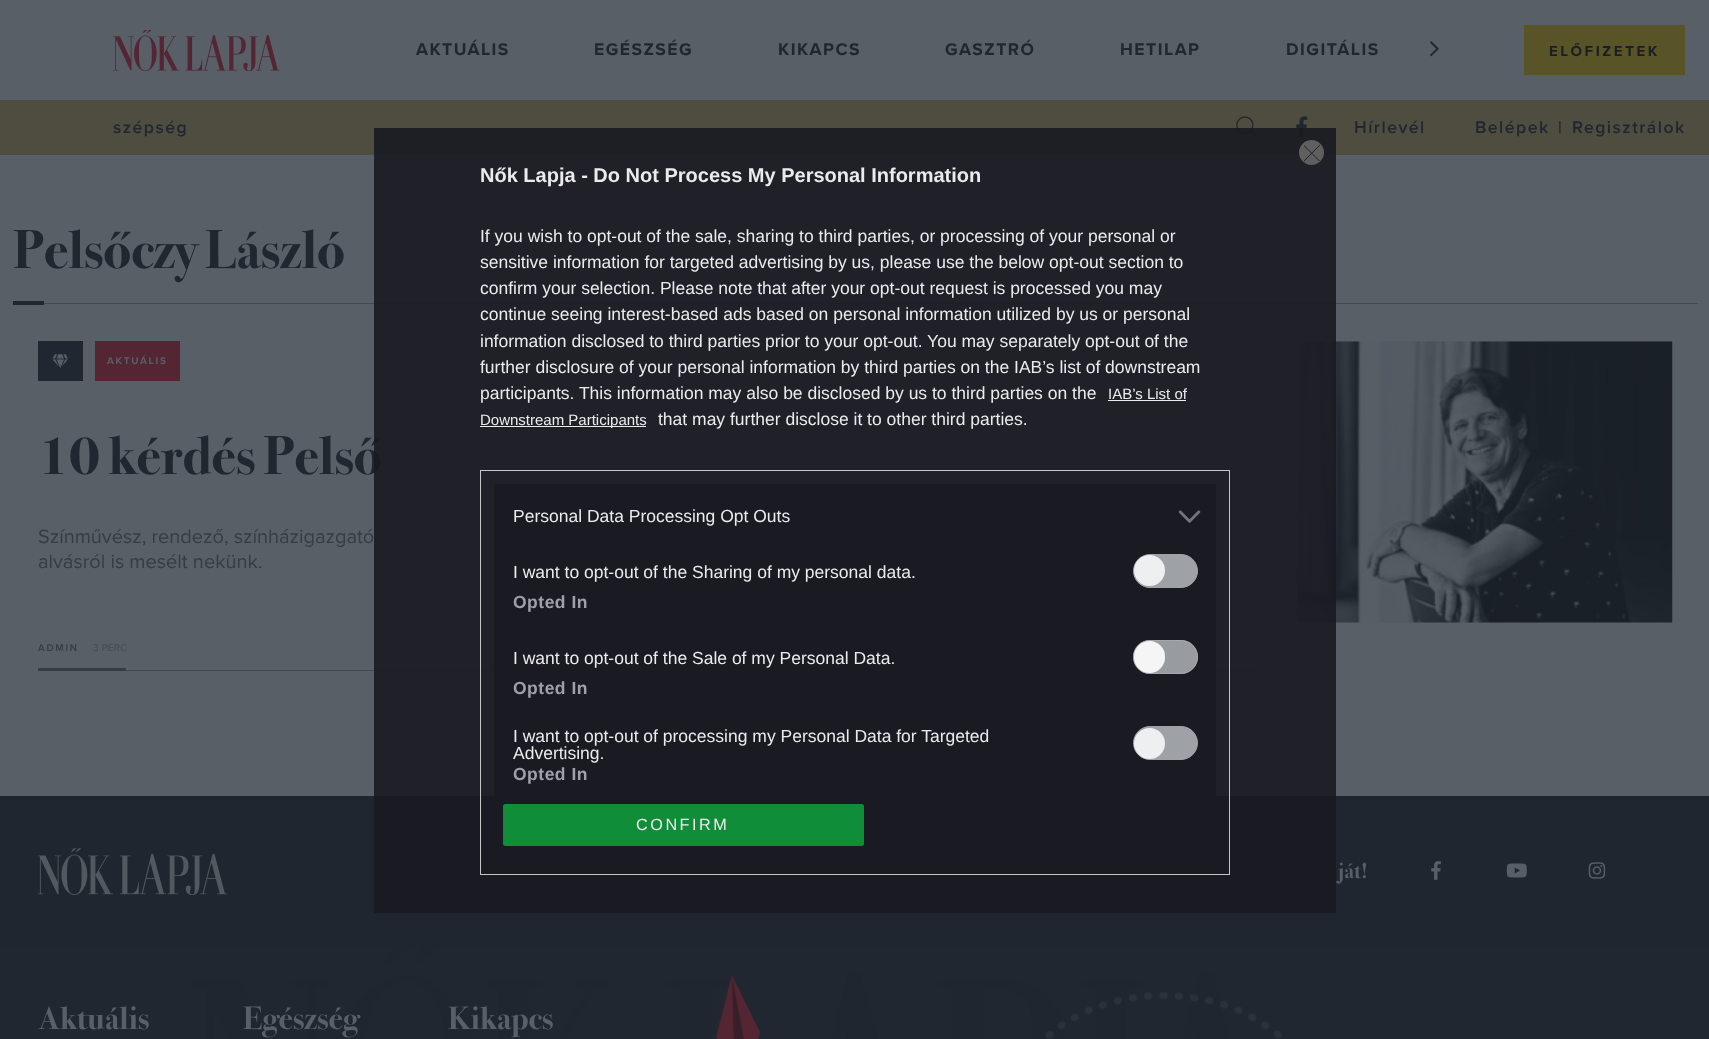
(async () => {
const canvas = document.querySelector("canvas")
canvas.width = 1709
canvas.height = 1039
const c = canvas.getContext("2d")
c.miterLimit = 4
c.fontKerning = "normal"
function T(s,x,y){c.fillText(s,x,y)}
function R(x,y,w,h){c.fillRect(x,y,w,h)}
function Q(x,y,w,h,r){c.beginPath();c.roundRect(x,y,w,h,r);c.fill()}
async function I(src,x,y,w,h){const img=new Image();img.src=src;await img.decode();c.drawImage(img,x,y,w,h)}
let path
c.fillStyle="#595f67"
R(0,0,1709,1039)
await I("1.png",113,30,167,41)
c.letterSpacing="1.5px"
c.font="bold 17.5px Proxima Nova"
c.fillStyle="#212731"
T("AKTUÁLIS",416,55)
T("EGÉSZSÉG",594,55)
T("KIKAPCS",778,55)
T("GASZTRÓ",945,55)
T("HETILAP",1120,55)
T("DIGITÁLIS",1286,55)
await I("2.png",1430,41,9,16)
c.fillStyle="#595427"
R(1524,25,161,50)
c.letterSpacing="2.6px"
c.font="bold 15px Proxima Nova"
c.fillStyle="#191f27"
T("ELŐFIZETEK",1549,56)
c.fillStyle="#4e4d3f"
R(0,100,1709,55)
c.letterSpacing="1.5px"
c.font="600 17.5px Proxima Nova"
c.fillStyle="#212731"
T("szépség",113,133)
await I("3.png",1236,116,22,22)
await I("4.png",1296,116,12,22)
T("Hírlevél",1354,133)
T("Belépek",1475,133)
T("|",1558,133)
T("Regisztrálok",1572,133)
c.fillStyle="#434952"
R(44,303,1654,1)
c.letterSpacing="0px"
c.font="55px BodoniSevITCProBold"
c.fillStyle="#212731"
T("Pelsőczy László",13,268)
R(13,301,31,4)
c.fillStyle="#434952"
R(126,670,1130,1)
c.fillStyle="#212731"
R(38,341,45,40)
await I("5.png",52,354,16,14)
c.fillStyle="#542633"
R(95,341,85,40)
c.letterSpacing="1.75px"
c.font="bold 10px Proxima Nova"
c.fillStyle="#595f67"
T("AKTUÁLIS",107,364)
c.letterSpacing="0px"
c.font="55px BodoniSevITCProBold"
c.fillStyle="#212731"
T("10 kérdés Pelső",38,474)
c.font="20px Proxima Nova"
c.fillStyle="#363c45"
T("Színművész, rendező, színházigazgató",38,543)
T("alvásról is mesélt nekünk.",38,568)
c.letterSpacing="1.75px"
c.font="600 10px Proxima Nova"
T("ADMIN",38,651)
R(38,668,88,3)
c.letterSpacing="0.25px"
c.font="10px Proxima Nova"
c.fillStyle="#434952"
T("3 PERC",93,651)
await I("6.png",1297,341,376,282)
c.fillStyle="#212731"
R(0,946,1709,93)
await I("7.png",193,946,1090,93)
c.fillStyle="#20262f"
R(0,796,1709,150)
await I("8.png",38,848,189,47)
c.letterSpacing="0px"
c.font="22px BodoniSevITCProBold"
c.fillStyle="#595f67"
T("ját!",1338,878)
await I("9.png",1431,861,10,19)
await I("10.png",1506,863,21,15)
await I("11.png",1588,862,18,17)
c.font="32.5px BodoniSevITCProBold"
T("Aktuális",38,1029)
T("Egészség",243,1029)
T("Kikapcs",448,1029)
c.fillStyle="#191922e6"
R(374,128,962,785)
c.fillStyle="#666666e6"
c.beginPath()
c.arc(1311.5,152.5,12.5,0,7)
c.fill()
c.save()
c.beginPath()
c.rect(1304,145,16,16)
c.clip()
path = new Path2D("M1304 145.5l15.5 15.5m0-15.5l-15.5 15.5")
c.strokeStyle="#09090a"
c.lineWidth=0.7
c.lineCap="round"
c.lineJoin="round"
c.stroke(path)
c.restore()
c.font="bold 20px Liberation Sans"
c.fillStyle="#ebebec"
T("Nők Lapja - Do Not Process My Personal Information",480,182)
c.font="17.5px Liberation Sans"
T("If you wish to opt-out of the sale, sharing to third parties, or processing of your personal or",480,242)
T("sensitive information for targeted advertising by us, please use the below opt-out section to",480,268)
T("confirm your selection. Please note that after your opt-out request is processed you may",480,294)
T("continue seeing interest-based ads based on personal information utilized by us or personal",480,320)
T("information disclosed to third parties prior to your opt-out. You may separately opt-out of the",480,347)
T("further disclosure of your personal information by third parties on the IAB’s list of downstream",480,373)
T("participants. This information may also be disclosed by us to third parties on the",480,399)
c.font="15px Liberation Sans"
T("IAB’s List of",1108,399)
R(1108,400,78,1)
R(480,426,166,1)
T("Downstream Participants",480,425)
c.font="17.5px Liberation Sans"
T("that may further disclose it to other third parties.",658,425)
c.strokeStyle="#d8d8d8e6"
c.strokeRect(480.5,470.5,749,404)
c.fillStyle="#191922e6"
R(494,484,722,312)
c.fillStyle="#ebebec"
T("Personal Data Processing Opt Outs",513,522)
await I("12.png",1178,510,23,13)
T("I want to opt-out of the Sharing of my personal data.",513,578)
c.fillStyle="#9ea2a7"
c.beginPath()
c.roundRect(1133.5,554.5,64,33,16.5)
c.fill()
c.strokeStyle="#9ea2a7"
c.stroke()
c.fillStyle="#eeeff0"
c.beginPath()
c.arc(1149.5,570.5,15.5,0,7)
c.fill()
c.letterSpacing="0.5px"
c.font="bold 17.5px Liberation Sans"
c.fillStyle="#9ea2a7"
T("Opted In",513,608)
c.letterSpacing="0px"
c.font="17.5px Liberation Sans"
c.fillStyle="#ebebec"
T("I want to opt-out of the Sale of my Personal Data.",513,664)
c.fillStyle="#989ba0"
Q(1133,640,65,34,17)
c.beginPath()
c.roundRect(1133.5,640.5,64,33,16.5)
c.strokeStyle="#a6a9aee6"
c.stroke()
c.fillStyle="#ffffffe6"
Q(1134,641,31,32,15.5)
c.letterSpacing="0.5px"
c.font="bold 17.5px Liberation Sans"
c.fillStyle="#9ea2a7"
T("Opted In",513,694)
c.letterSpacing="0px"
c.font="17.5px Liberation Sans"
c.fillStyle="#ebebec"
T("I want to opt-out of processing my Personal Data for Targeted",513,742)
T("Advertising.",513,759)
c.fillStyle="#9ea2a7"
c.beginPath()
c.roundRect(1133.5,726.5,64,33,16.5)
c.fill()
c.strokeStyle="#9ea2a7"
c.stroke()
c.fillStyle="#eeeff0"
c.beginPath()
c.arc(1149.5,743.5,15.5,0,7)
c.fill()
c.letterSpacing="0.5px"
c.font="bold 17.5px Liberation Sans"
c.fillStyle="#9ea2a7"
T("Opted In",513,780)
c.fillStyle="#108d38"
Q(503,804,361,42,2.5)
c.letterSpacing="2.5px"
c.font="16.25px Liberation Sans"
c.fillStyle="#ebebec"
T("CONFIRM",636,830)
})()
